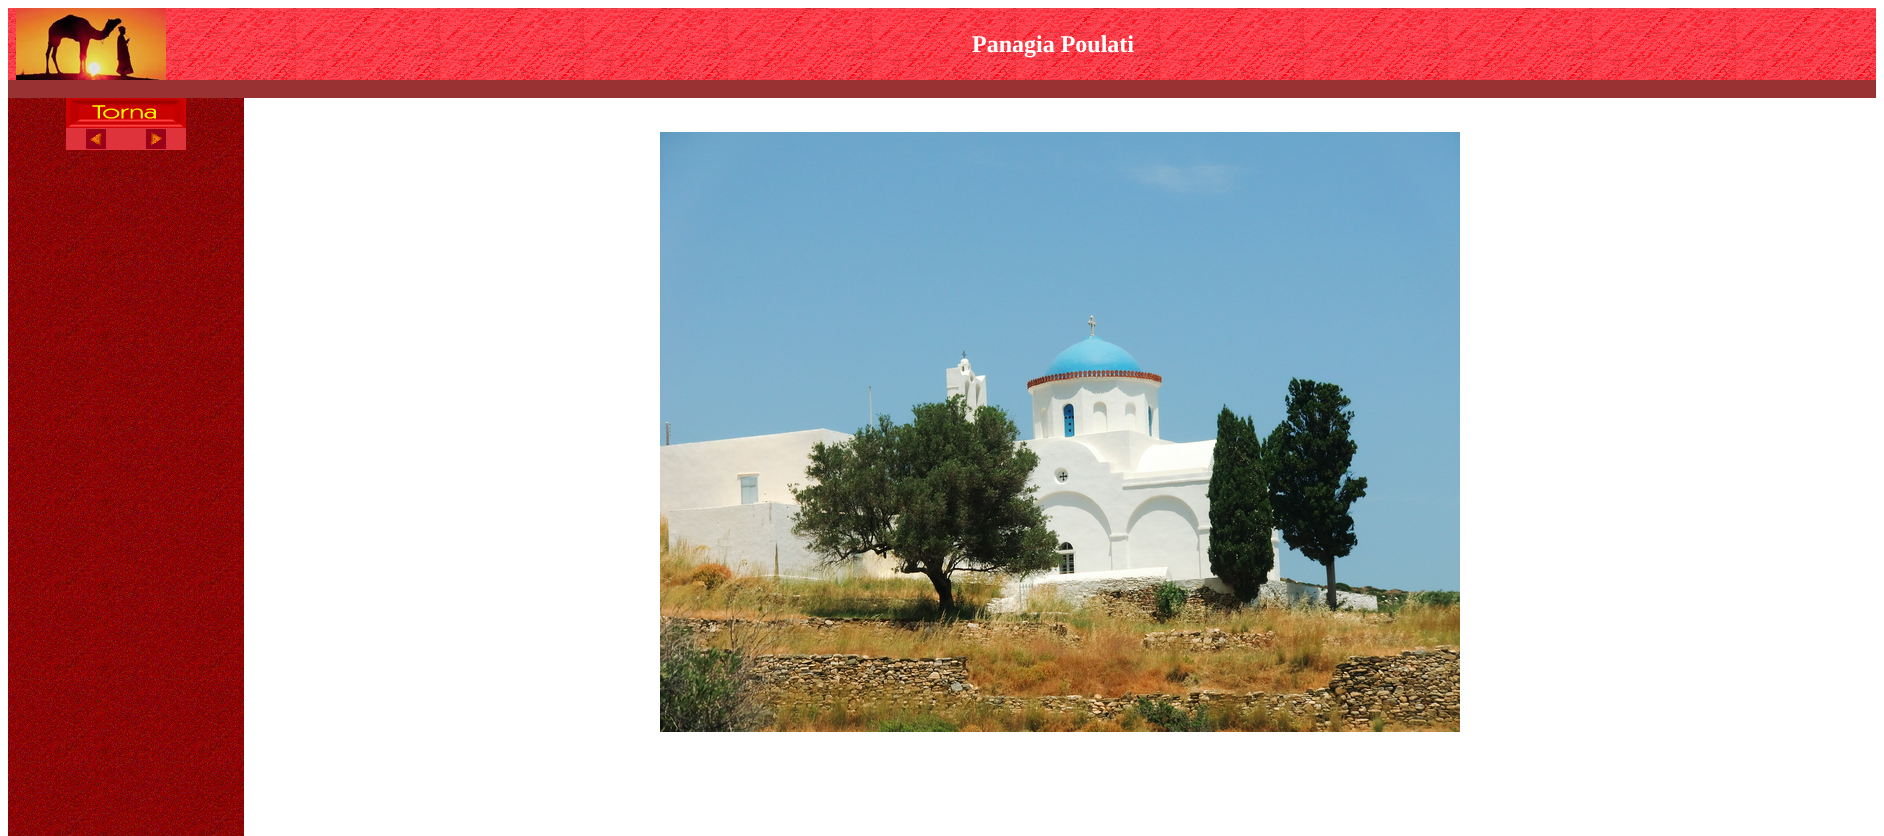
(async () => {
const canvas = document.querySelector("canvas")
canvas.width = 1884
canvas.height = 836
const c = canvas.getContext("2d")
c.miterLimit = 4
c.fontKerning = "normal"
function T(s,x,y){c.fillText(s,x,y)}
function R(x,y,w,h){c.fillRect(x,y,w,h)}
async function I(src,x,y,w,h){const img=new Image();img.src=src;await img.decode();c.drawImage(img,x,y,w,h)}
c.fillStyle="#fff"
R(0,0,1884,836)
await I("1.png",8,8,1868,72)
await I("2.png",16,8,150,72)
c.font="bold 24px Liberation Serif"
T("Panagia Poulati",972,52)
c.fillStyle="#933"
R(8,80,1868,18)
await I("3.png",8,98,236,738)
await I("4.png",66,98,120,30)
c.fillStyle="#df333c"
R(66,128,120,22)
await I("5.png",86,129,20,20)
await I("6.png",146,129,20,20)
await I("7.png",660,132,800,600)
})()
